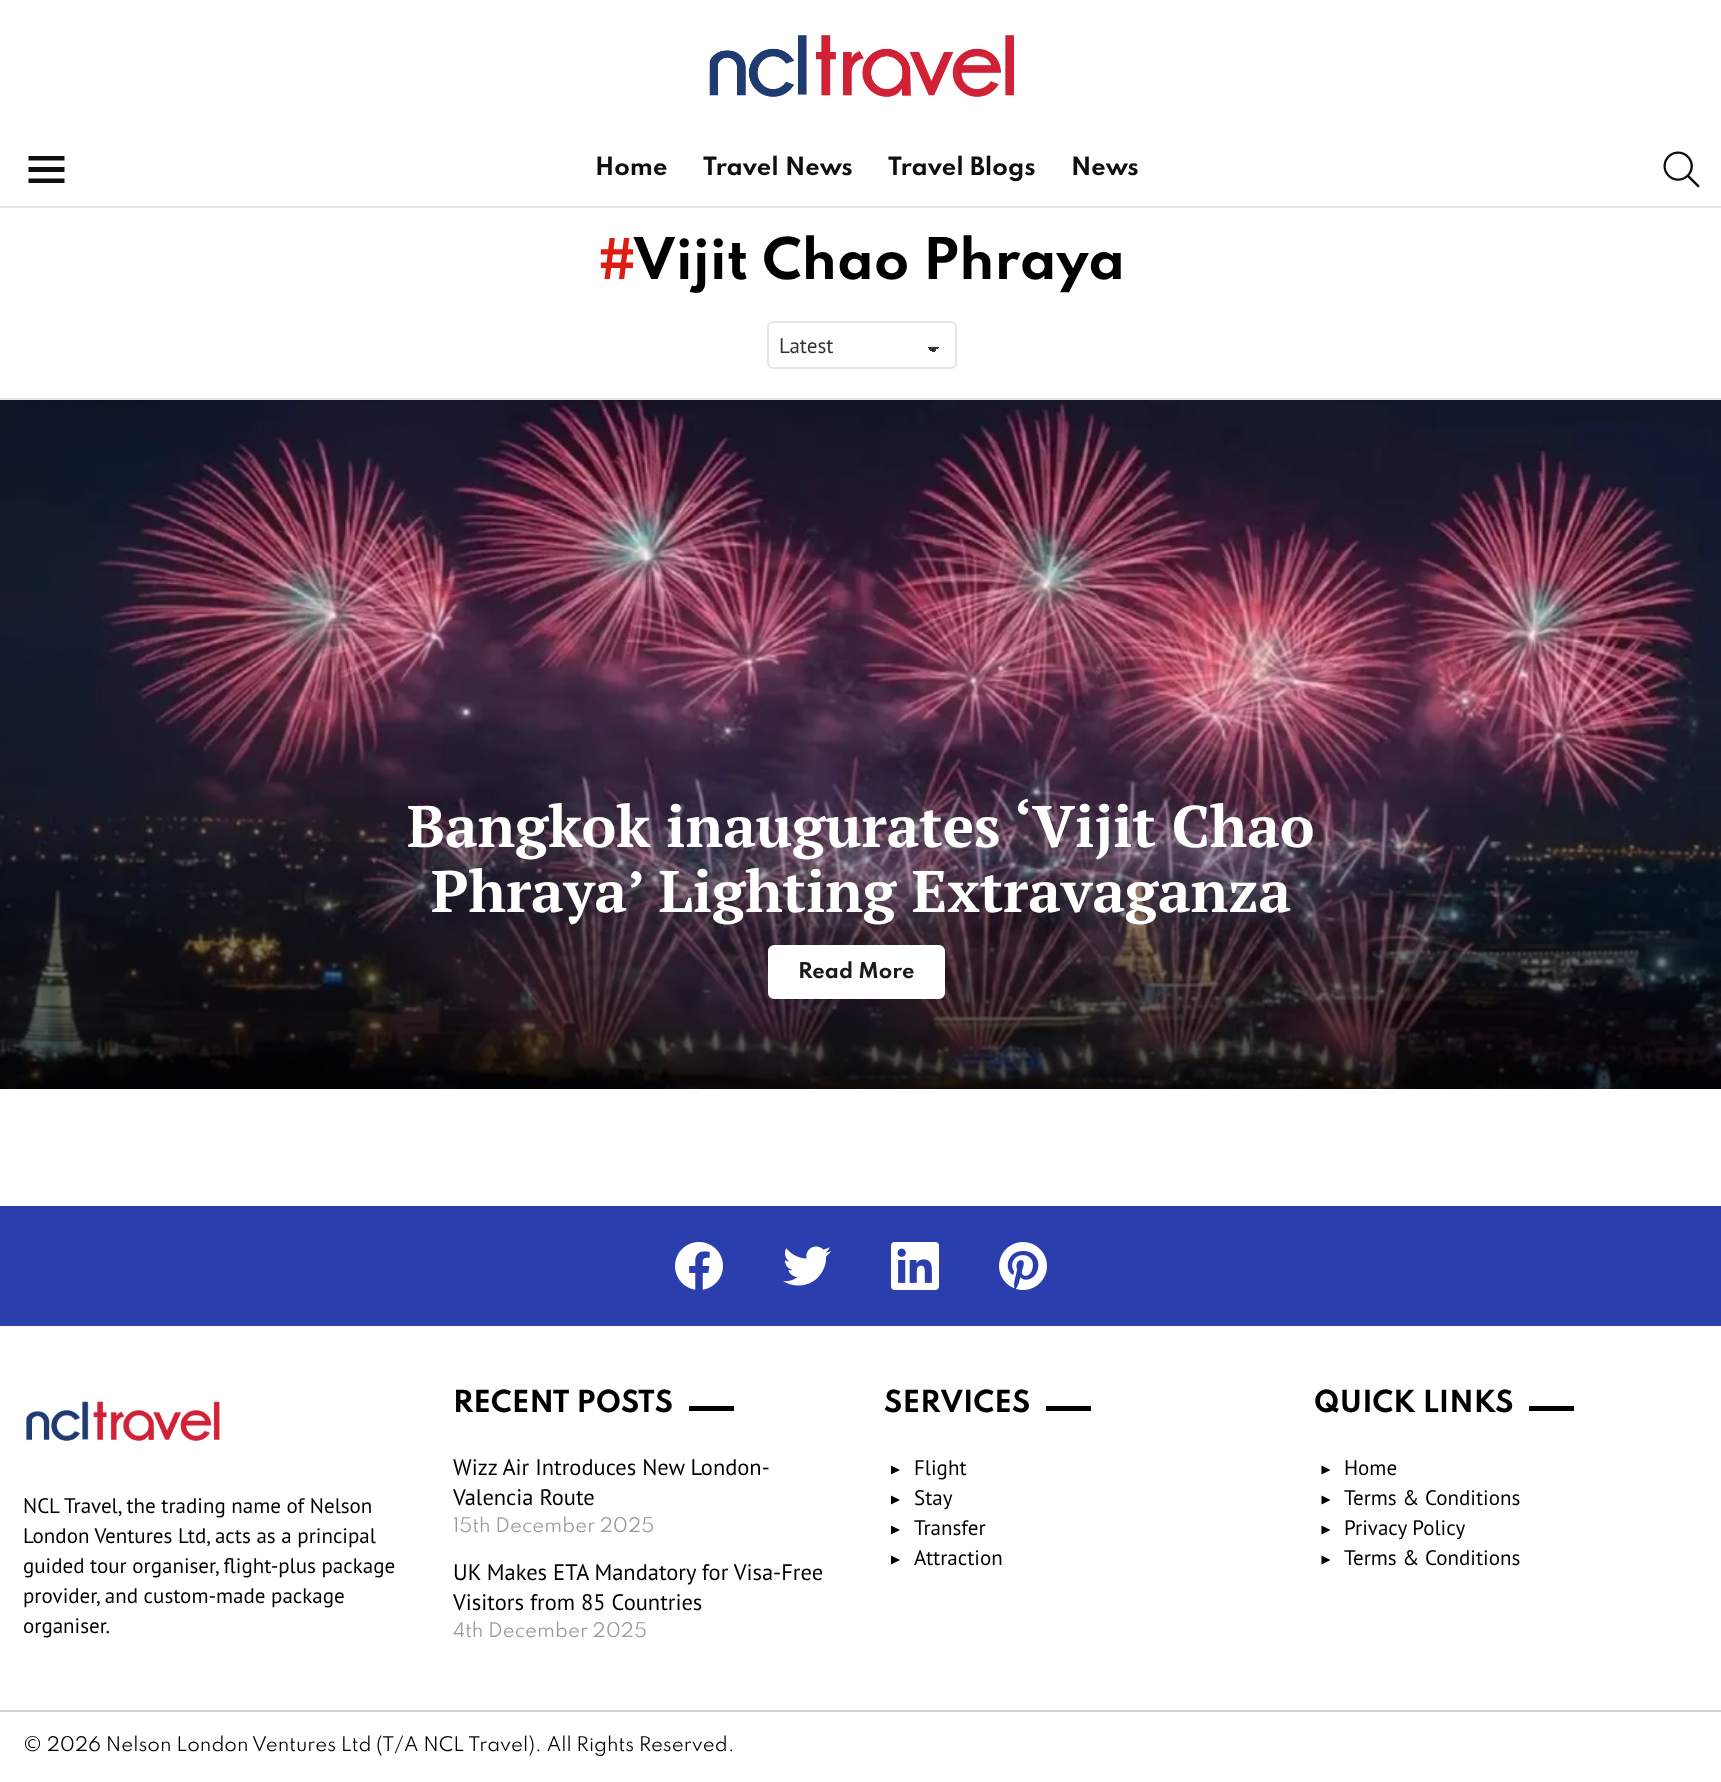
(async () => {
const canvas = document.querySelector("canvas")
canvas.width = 1721
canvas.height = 1782
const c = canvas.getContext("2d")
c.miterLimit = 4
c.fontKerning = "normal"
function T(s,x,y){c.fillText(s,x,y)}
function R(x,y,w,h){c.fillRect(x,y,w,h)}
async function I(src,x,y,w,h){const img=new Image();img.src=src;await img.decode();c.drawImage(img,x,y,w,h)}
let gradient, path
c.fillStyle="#fff"
R(0,0,1721,1782)
await I("1.png",709,35,305,62)
c.fillStyle="#0f0f0f"
path = new Path2D("M28.5 156h36v4.5h-36zm0 11h36v5h-36zm0 11.5h36v4.5h-36z")
c.fill(path)
c.font="bold 22.5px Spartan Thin"
T("Home",595,175)
T("Travel News",703,175)
T("Travel Blogs",888,175)
T("News",1071,175)
await I("2.png",1663,151,37,37)
c.fillStyle="#e6e6e6"
R(0,206,1721,2)
c.font="bold 51px Spartan Thin"
c.fillStyle="#dd1d0f"
T("#",597,279)
c.fillStyle="#000"
T("Vijit Chao Phraya",633,279)
gradient = c.createLinearGradient(933,346,940,353)
gradient.addColorStop(.5,"#333")
gradient.addColorStop(.5,"#fff")
c.fillStyle = gradient
R(933,347,8,6)
gradient = c.createLinearGradient(926,353,933,346)
gradient.addColorStop(.5,"#fff")
gradient.addColorStop(.5,"#333")
c.fillStyle = gradient
R(926,347,7,5)
c.beginPath()
c.roundRect(768,322,188,46,5)
c.strokeStyle="#e6e6e6"
c.lineWidth=2
c.stroke()
c.font="21px PT Sans"
c.fillStyle="#333"
T("Latest",779,353)
c.fillStyle="#e6e6e6"
R(0,398,1721,2)
await I("3.png",0,400,1721,689)
c.font="bold 58.5px PT Serif"
c.fillStyle="#fff"
T("Bangkok inaugurates ‘Vijit Chao",407,847)
T("Phraya’ Lighting Extravaganza",431,912)
c.beginPath()
c.roundRect(769.5,946.5,174,51,4.5)
c.fill()
c.strokeStyle="#fff"
c.lineWidth=3
c.stroke()
c.font="bold 19.5px Spartan Thin"
c.fillStyle="#1a1a1a"
T("Read More",798,978)
c.fillStyle="#2a3ead"
R(0,1206,1721,120)
await I("4.png",675,1242,48,48)
await I("5.png",783,1246,48,40)
await I("6.png",891,1242,48,48)
await I("7.png",999,1242,48,48)
await I("8.png",26,1401,194,40)
c.font="21px PT Sans"
c.fillStyle="#000"
T("NCL Travel, the trading name of Nelson",23,1513)
T("London Ventures Ltd, acts as a principal",23,1543)
T("guided tour organiser, flight-plus package",23,1573)
T("provider, and custom-made package",23,1603)
T("organiser.",23,1633)
c.font="bold 27px Spartan Thin"
T("RECENT POSTS",453,1412)
R(689,1406,45,5)
c.font="22.5px PT Sans"
T("Wizz Air Introduces New London-",453,1475)
T("Valencia Route",453,1505)
c.font="18px Spartan Thin"
c.fillStyle="#999"
T("15th December 2025",453,1532)
c.font="22.5px PT Sans"
c.fillStyle="#000"
T("UK Makes ETA Mandatory for Visa-Free",453,1580)
T("Visitors from 85 Countries",453,1610)
c.font="18px Spartan Thin"
c.fillStyle="#999"
T("4th December 2025",453,1637)
c.font="bold 27px Spartan Thin"
c.fillStyle="#000"
T("SERVICES",884,1412)
R(1046,1406,45,5)
path = new Path2D("M900 1470l-9-4.5v9z")
c.fill(path)
c.font="21px PT Sans"
T("Flight",914,1475)
path = new Path2D("M900 1500l-9-4.5v9z")
c.fill(path)
T("Stay",914,1505)
path = new Path2D("M900 1530l-9-4.5v9z")
c.fill(path)
T("Transfer",914,1535)
path = new Path2D("M900 1560l-9-4.5v9z")
c.fill(path)
T("Attraction",914,1565)
c.font="bold 27px Spartan Thin"
T("QUICK LINKS",1314,1412)
R(1529,1406,45,5)
path = new Path2D("M1330.5 1470l-9-4.5v9z")
c.fill(path)
c.font="21px PT Sans"
T("Home",1344,1475)
path = new Path2D("M1330.5 1500l-9-4.5v9z")
c.fill(path)
T("Terms & Conditions",1344,1505)
path = new Path2D("M1330.5 1530l-9-4.5v9z")
c.fill(path)
T("Privacy Policy",1344,1535)
path = new Path2D("M1330.5 1560l-9-4.5v9z")
c.fill(path)
T("Terms & Conditions",1344,1565)
c.fillStyle="#d4d4d4"
R(0,1710,1721,2)
c.font="18px Spartan Thin"
c.fillStyle="#000"
T("© 2026 Nelson London Ventures Ltd (T/A NCL Travel). All Rights Reserved.",23,1751)
})()
